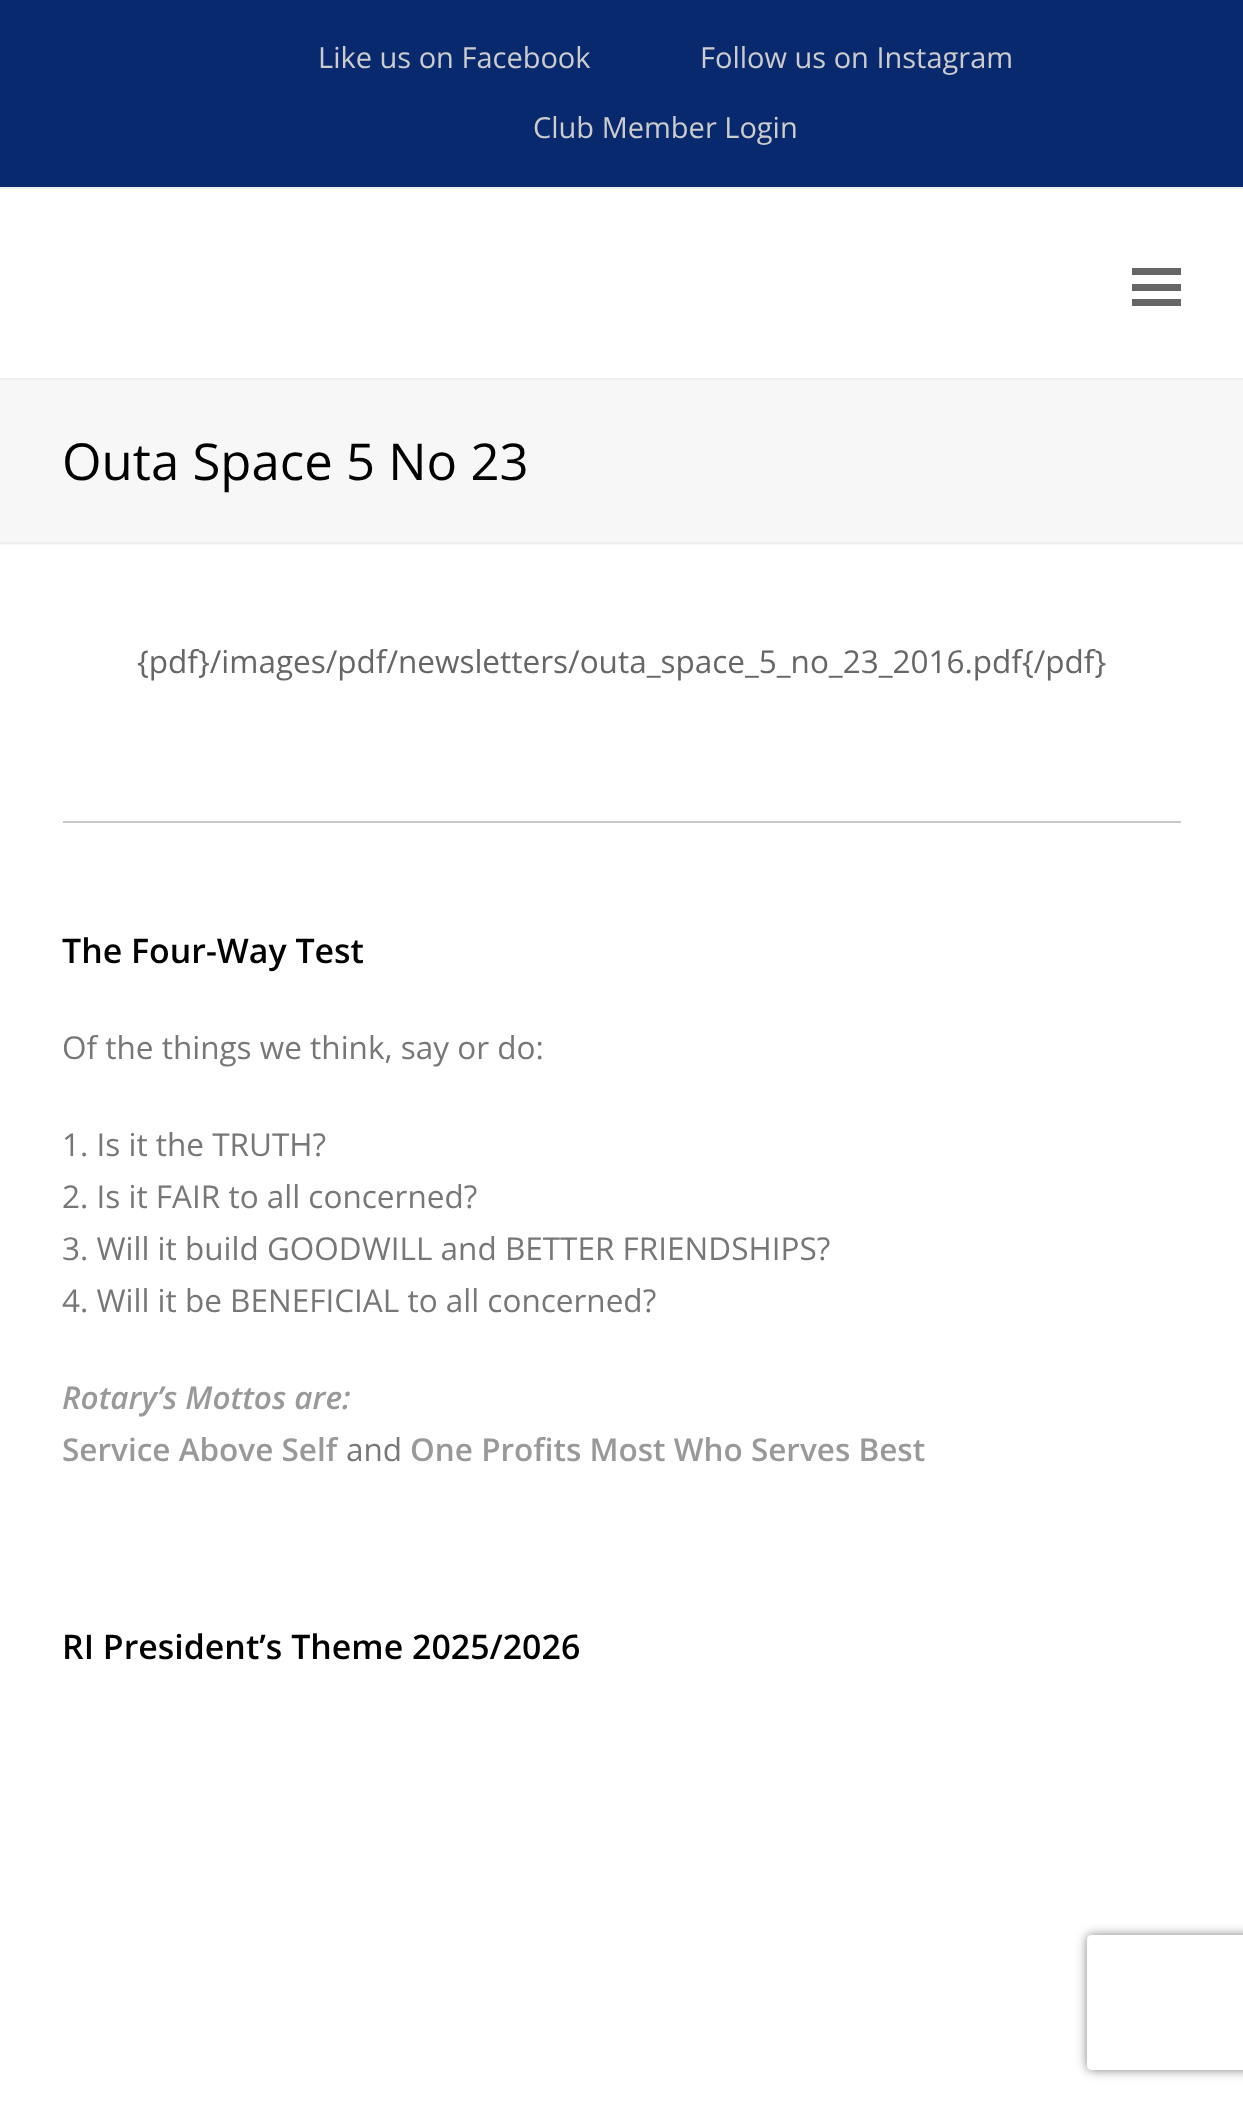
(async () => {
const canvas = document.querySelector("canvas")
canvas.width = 1243
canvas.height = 2101
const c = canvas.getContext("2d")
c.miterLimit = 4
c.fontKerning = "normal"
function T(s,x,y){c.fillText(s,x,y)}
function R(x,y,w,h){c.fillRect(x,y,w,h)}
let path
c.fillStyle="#fff"
R(0,0,1243,2101)
c.fillStyle="#08296e"
R(0,0,1243,187)
c.fillStyle="#eee"
R(0,187,1243,2)
c.font="29px Open Sans"
c.fillStyle="#ccc"
T("Like us on Facebook",318,68)
T("Follow us on Instagram",700,68)
T("Club Member Login",533,138)
c.fillStyle="#666"
R(1132,284,49,7)
R(1132,268,49,7)
R(1132,299,49,7)
c.fillStyle="#f7f7f7"
R(0,380,1243,165)
c.fillStyle="#eee"
R(0,378,1243,2)
R(0,542,1243,2)
c.font="50.9px Open Sans"
c.fillStyle="#000"
T("Outa Space 5 No 23",62,480)
c.font="31.5px Open Sans"
c.fillStyle="#666"
T("{pdf}/images/pdf/newsletters/outa_space_5_no_23_2016.pdf{/pdf}",137,673)
c.fillStyle="#c8c8c8"
R(63,821,1118,2)
c.font="600 33.9px Open Sans"
c.fillStyle="#000"
T("The Four-Way Test",62,963)
c.font="31.5px Open Sans"
c.fillStyle="#777"
T("Of the things we think, say or do:",62,1059)
T("1. Is it the TRUTH?",62,1156)
T("2. Is it FAIR to all concerned?",62,1208)
T("3. Will it build GOODWILL and BETTER FRIENDSHIPS?",62,1260)
T("4. Will it be BENEFICIAL to all concerned?",62,1312)
c.font="italic 600 31.5px Open Sans"
c.fillStyle="#999"
T("Rotary’s Mottos are:",62,1409)
c.font="600 31.5px Open Sans"
T("Service Above Self",62,1461)
c.font="31.5px Open Sans"
c.fillStyle="#777"
T("and",346,1461)
c.font="600 31.5px Open Sans"
c.fillStyle="#999"
T("One Profits Most Who Serves Best",410,1461)
c.font="600 33.9px Open Sans"
c.fillStyle="#000"
T("RI President’s Theme 2025/2026",62,1659)
c.save()
path = new Path2D("M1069 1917h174v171h-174zm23 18h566c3 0 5 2 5 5v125c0 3-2 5-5 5h-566c-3 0-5-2-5-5v-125c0-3 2-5 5-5z")
c.clip(path,"evenodd")
c.fillStyle="#808080"
c.filter="blur(5.5px)"
c.beginPath()
c.roundRect(1087,1935,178,135,5)
c.fill()
c.filter="none"
c.restore()
})()
